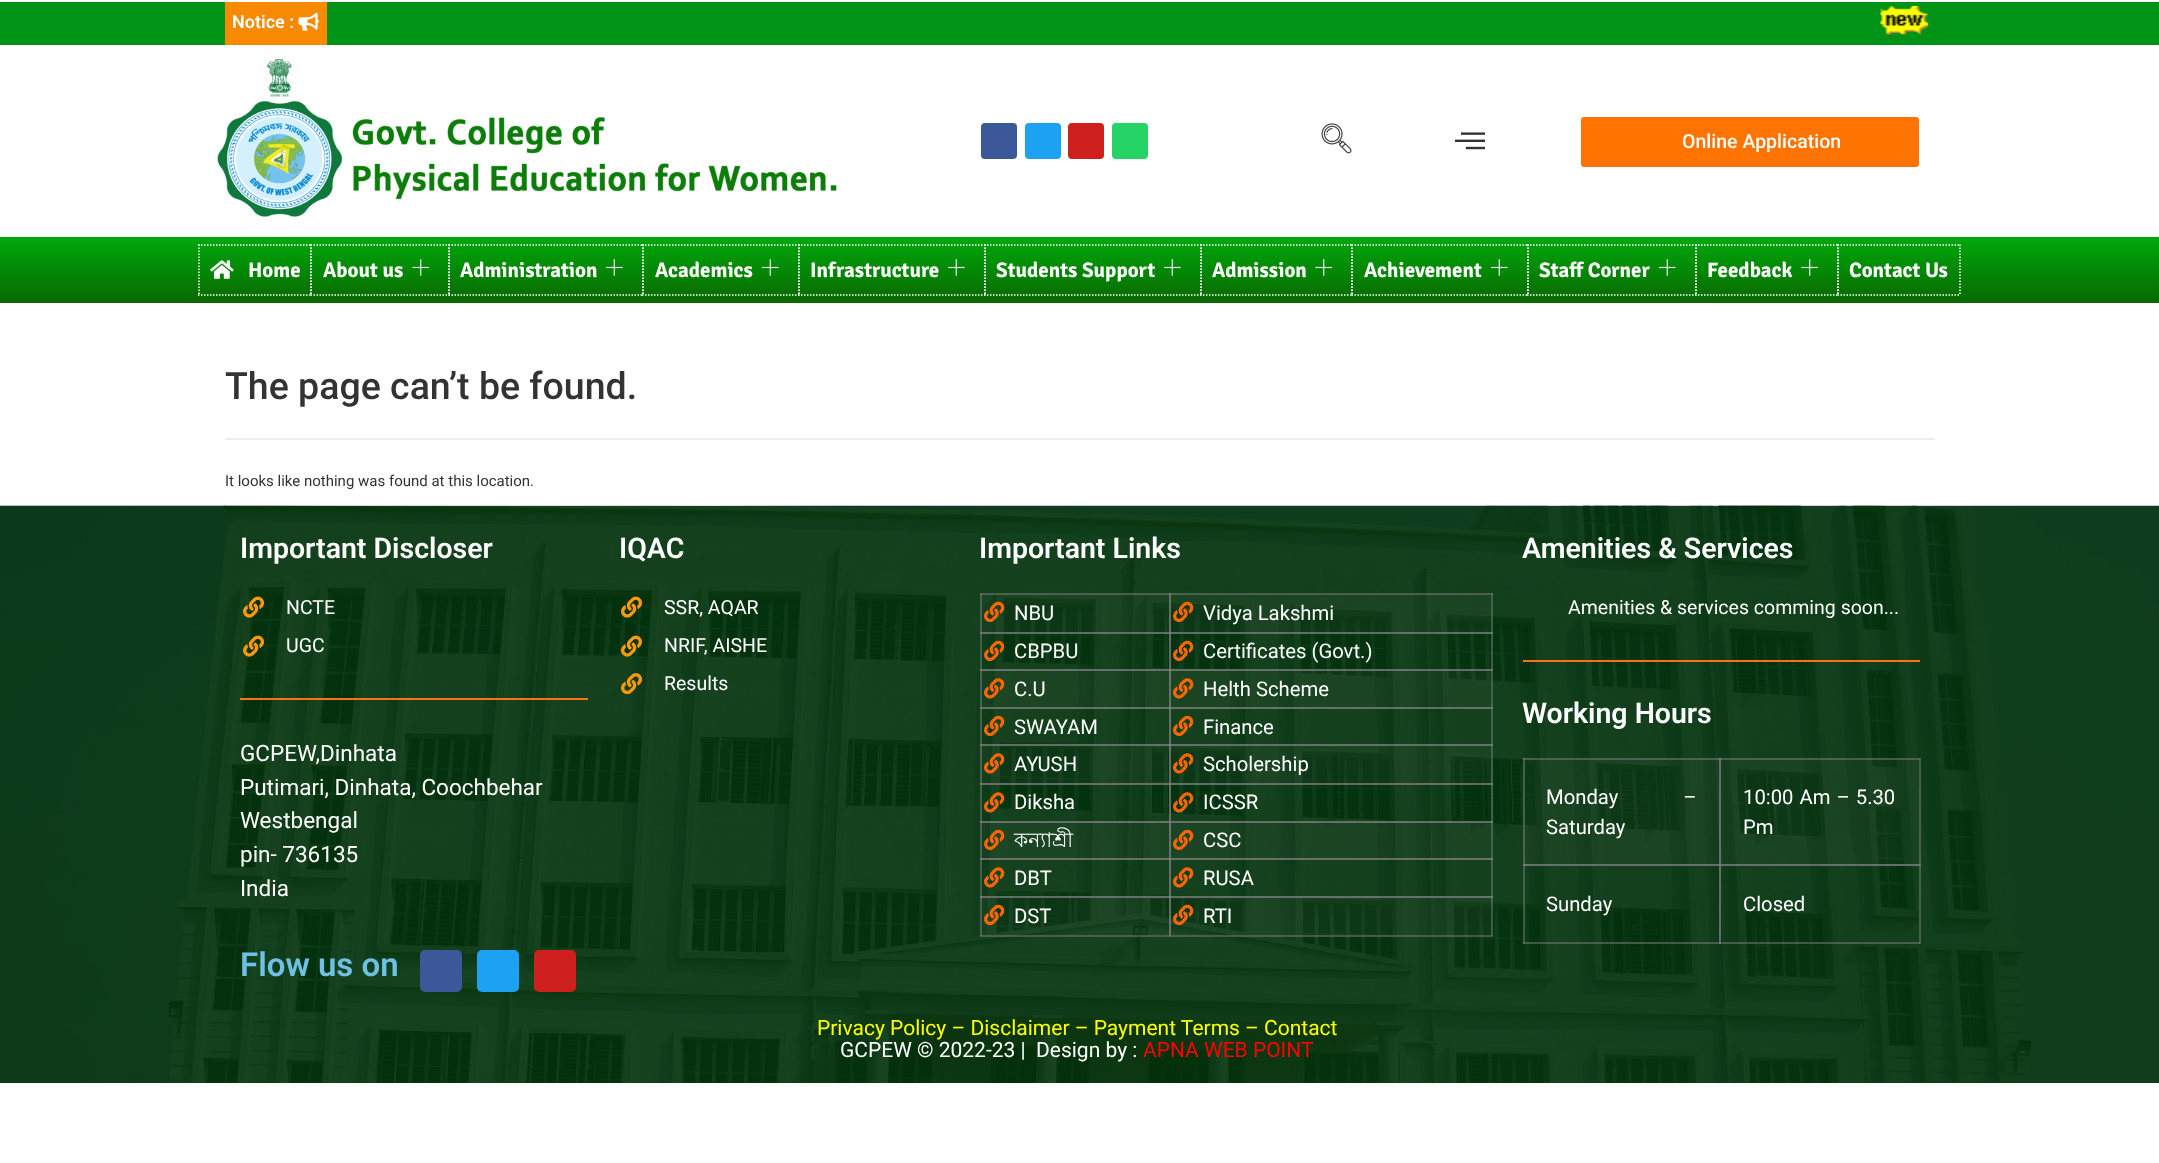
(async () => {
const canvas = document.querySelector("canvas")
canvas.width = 2159
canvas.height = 1163
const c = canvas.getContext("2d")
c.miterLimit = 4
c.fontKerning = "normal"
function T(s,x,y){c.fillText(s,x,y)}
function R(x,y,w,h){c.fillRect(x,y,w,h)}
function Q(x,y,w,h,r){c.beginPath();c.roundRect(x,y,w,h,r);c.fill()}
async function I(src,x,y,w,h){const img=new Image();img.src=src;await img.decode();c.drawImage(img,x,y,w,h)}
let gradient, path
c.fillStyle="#fff"
R(0,0,2159,1163)
c.fillStyle="#019315"
R(0,2,2159,43)
c.fillStyle="#f78a00"
R(225,2,102,43)
c.font="600 18px Roboto"
c.fillStyle="#fff"
T("Notice :",232,28)
await I("1.png",298,12,21,19)
await I("2.png",1880,6,49,29)
await I("3.png",217,59,620,158)
c.fillStyle="#3b5998"
Q(981,123,36,36,4)
c.fillStyle="#1da1f2"
Q(1025,123,36,36,4)
c.fillStyle="#cd201f"
Q(1068,123,36,36,4)
c.fillStyle="#25d366"
Q(1112,123,36,36,4)
await I("4.png",1321,123,31,31)
await I("5.png",1455,132,30,18)
c.fillStyle="#ff7400"
Q(1581,117,338,50,3)
c.font="500 19.5px Roboto"
c.fillStyle="#fff"
T("Online Application",1682,148)
gradient = c.createLinearGradient(1080,237,1080,303)
gradient.addColorStop(0,"#00a80c")
gradient.addColorStop(1,"#096800")
c.fillStyle = gradient
R(0,237,2159,66)
path = new Path2D("M198 245h114")
c.strokeStyle="#fff"
c.lineWidth=1.5
c.setLineDash([1.5,1.5])
c.stroke(path)
path = new Path2D("M311 244.5v51")
c.stroke(path)
path = new Path2D("M198 295h114")
c.stroke(path)
path = new Path2D("M199 244.5v51")
c.stroke(path)
await I("6.png",210,260,24,19)
c.font="bold 21px Signika Negative"
c.fillStyle="#fff"
T("Home",248,277)
path = new Path2D("M310.5 245h139.5")
c.stroke(path)
path = new Path2D("M449 244.5v51")
c.stroke(path)
path = new Path2D("M310.5 295h139.5")
c.stroke(path)
path = new Path2D("M311 244.5v51")
c.stroke(path)
T("About us",323,277)
await I("7.png",412,259,17,17)
path = new Path2D("M448.5 245h195")
c.stroke(path)
path = new Path2D("M643 244.5v51")
c.stroke(path)
path = new Path2D("M448.5 295h195")
c.stroke(path)
path = new Path2D("M449 244.5v51")
c.stroke(path)
T("Administration",460,277)
await I("8.png",606,259,17,17)
path = new Path2D("M642 245h157.5")
c.stroke(path)
path = new Path2D("M799 244.5v51")
c.stroke(path)
path = new Path2D("M642 295h157.5")
c.stroke(path)
path = new Path2D("M643 244.5v51")
c.stroke(path)
T("Academics",655,277)
await I("8.png",762,259,17,17)
path = new Path2D("M798 245h187.5")
c.stroke(path)
path = new Path2D("M985 244.5v51")
c.stroke(path)
path = new Path2D("M798 295h187.5")
c.stroke(path)
path = new Path2D("M799 244.5v51")
c.stroke(path)
T("Infrastructure",810,277)
await I("8.png",948,259,17,17)
path = new Path2D("M984 245h217.5")
c.stroke(path)
path = new Path2D("M1201 244.5v51")
c.stroke(path)
path = new Path2D("M984 295h217.5")
c.stroke(path)
path = new Path2D("M985 244.5v51")
c.stroke(path)
T("Students Support",996,277)
await I("8.png",1164,259,17,17)
path = new Path2D("M1200 245h153")
c.stroke(path)
path = new Path2D("M1352 244.5v51")
c.stroke(path)
path = new Path2D("M1200 295h153")
c.stroke(path)
path = new Path2D("M1201 244.5v51")
c.stroke(path)
T("Admission",1212,277)
await I("7.png",1315,259,17,17)
path = new Path2D("M1351.5 245h177")
c.stroke(path)
path = new Path2D("M1528 244.5v51")
c.stroke(path)
path = new Path2D("M1351.5 295h177")
c.stroke(path)
path = new Path2D("M1352 244.5v51")
c.stroke(path)
T("Achievement",1364,277)
await I("8.png",1491,259,17,17)
path = new Path2D("M1527 245h169.5")
c.stroke(path)
path = new Path2D("M1696 244.5v51")
c.stroke(path)
path = new Path2D("M1527 295h169.5")
c.stroke(path)
path = new Path2D("M1528 244.5v51")
c.stroke(path)
T("Staff Corner",1539,277)
await I("8.png",1659,259,17,17)
path = new Path2D("M1695 245h144")
c.stroke(path)
path = new Path2D("M1838 244.5v51")
c.stroke(path)
path = new Path2D("M1695 295h144")
c.stroke(path)
path = new Path2D("M1696 244.5v51")
c.stroke(path)
T("Feedback",1707,277)
await I("7.png",1801,259,17,17)
path = new Path2D("M1837.5 245h123")
c.stroke(path)
path = new Path2D("M1960 244.5v51")
c.stroke(path)
path = new Path2D("M1837.5 295h123")
c.stroke(path)
path = new Path2D("M1838 244.5v51")
c.stroke(path)
T("Contact Us",1849,277)
c.fillStyle="#eee"
R(225,438,1710,2)
c.font="500 37.5px Roboto"
c.fillStyle="#333"
T("The page can’t be found.",225,399)
c.font="15px Roboto"
T("It looks like nothing was found at this location.",225,486)
await I("9.png",0,505,2159,578)
c.font="600 28.5px Roboto"
c.fillStyle="#fff"
T("Important Discloser",240,558)
await I("10.png",243,596,21,22)
c.font="19.5px Roboto"
T("NCTE",286,614)
await I("11.png",243,635,21,22)
T("UGC",286,652)
c.fillStyle="#ff6f18"
R(240,698,348,2)
c.font="22.5px Roboto"
c.fillStyle="#fff"
T("GCPEW,Dinhata",240,761)
T("Putimari, Dinhata, Coochbehar",240,795)
T("Westbengal",240,828)
T("pin- 736135",240,862)
T("India",240,896)
c.font="600 33px Roboto"
c.fillStyle="#6ec1e4"
T("Flow us on",240,976)
c.fillStyle="#3b5998"
Q(420,950,42,42,5)
c.fillStyle="#1da1f2"
Q(477,950,42,42,5)
c.fillStyle="#cd201f"
Q(534,950,42,42,5)
c.font="600 28.5px Roboto"
c.fillStyle="#fff"
T("IQAC",619,558)
await I("12.png",621,596,21,22)
c.font="19.5px Roboto"
T("SSR, AQAR",664,614)
await I("13.png",621,635,21,22)
T("NRIF, AISHE",664,652)
await I("14.png",621,673,21,22)
T("Results",664,690)
c.font="600 28.5px Roboto"
T("Important Links",979,558)
c.fillStyle="#80808012"
R(980,594,189,38)
R(1169,594,322,38)
c.fillStyle="#80808080"
R(1169,593,324,2)
R(1169,632,324,2)
c.fillStyle="#80808012"
R(1169,669,322,39)
c.fillStyle="#80808080"
R(1169,669,324,2)
R(1169,707,324,2)
R(1169,744,324,2)
R(1169,783,324,2)
c.fillStyle="#80808012"
R(1169,821,322,39)
c.fillStyle="#80808080"
R(1169,821,324,2)
R(1169,858,324,2)
c.fillStyle="#80808012"
R(1169,897,322,38)
c.fillStyle="#80808080"
R(1169,896,324,2)
R(1491,896,2,40)
R(1491,858,2,39)
R(1491,821,2,39)
R(1491,783,2,39)
R(1491,744,2,41)
R(1491,707,2,39)
R(1491,669,2,39)
R(1491,632,2,39)
R(1491,593,2,40)
c.fillStyle="#80808012"
R(980,669,189,39)
R(1169,746,322,37)
R(980,821,189,39)
R(980,897,189,38)
c.fillStyle="#80808080"
R(1169,935,324,2)
R(1169,896,2,40)
R(980,896,190,2)
R(1169,896,2,40)
R(1169,896,324,2)
R(1169,858,2,39)
R(980,858,190,2)
R(1169,858,2,39)
R(1169,858,324,2)
R(1169,821,2,39)
R(980,821,190,2)
R(1169,821,2,39)
R(1169,821,324,2)
R(1169,783,2,39)
R(980,783,190,2)
R(1169,783,2,39)
R(1169,783,324,2)
R(1169,744,2,41)
R(980,744,190,2)
R(1169,744,2,41)
R(1169,744,324,2)
R(1169,707,2,39)
R(980,707,190,2)
R(1169,707,2,39)
R(1169,707,324,2)
R(1169,669,2,39)
R(980,669,190,2)
R(1169,669,2,39)
R(1169,669,324,2)
R(1169,632,2,39)
R(980,632,190,2)
R(1169,632,2,39)
R(1169,632,324,2)
R(1169,593,2,40)
R(980,593,190,2)
R(1169,593,2,40)
c.fillStyle="#80808012"
R(980,746,189,37)
c.fillStyle="#80808080"
R(980,935,190,2)
R(980,896,2,40)
R(980,896,190,2)
R(980,858,2,39)
R(980,858,190,2)
R(980,821,2,39)
R(980,821,190,2)
R(980,783,2,39)
R(980,783,190,2)
R(980,744,2,41)
R(980,744,190,2)
R(980,707,2,39)
R(980,707,190,2)
R(980,669,2,39)
R(980,669,190,2)
R(980,632,2,39)
R(980,632,190,2)
R(980,593,2,40)
await I("15.png",984,601,21,21)
c.font="20.25px Roboto"
c.fillStyle="#fff"
T("NBU",1014,620)
await I("16.png",1173,601,21,21)
T("Vidya Lakshmi",1203,620)
await I("17.png",984,640,21,21)
T("CBPBU",1014,658)
await I("18.png",1173,640,21,21)
T("Certificates (Govt.)",1203,658)
await I("19.png",984,678,21,21)
T("C.U",1014,696)
await I("20.png",1173,678,21,21)
T("Helth Scheme",1203,696)
await I("21.png",984,715,21,21)
T("SWAYAM",1014,734)
await I("22.png",1173,715,21,21)
T("Finance",1203,734)
await I("23.png",984,753,21,21)
T("AYUSH",1014,771)
await I("24.png",1173,753,21,21)
T("Scholership",1203,771)
await I("25.png",984,792,21,21)
T("Diksha",1014,809)
await I("26.png",1173,792,21,21)
T("ICSSR",1203,809)
await I("27.png",984,829,21,21)
c.font="20.25px Lohit Bengali"
T("কন্যাশ্রী",1014,847)
await I("28.png",1173,829,21,21)
c.font="20.25px Roboto"
T("CSC",1203,847)
await I("29.png",984,867,21,21)
T("DBT",1014,885)
await I("30.png",1173,867,21,21)
T("RUSA",1203,885)
await I("31.png",984,904,21,21)
T("DST",1014,923)
await I("32.png",1173,904,21,21)
T("RTI",1203,923)
c.font="600 28.5px Roboto"
T("Amenities & Services",1522,558)
c.font="19.5px Roboto"
T("Amenities & services comming soon...",1568,614)
c.fillStyle="#ff6f18"
R(1523,660,397,2)
c.font="600 28.5px Roboto"
c.fillStyle="#fff"
T("Working Hours",1522,723)
c.fillStyle="#80808012"
R(1523,758,198,108)
R(1721,758,198,108)
c.fillStyle="#80808080"
R(1719,758,201,2)
R(1719,864,201,2)
R(1919,864,2,80)
R(1919,758,2,108)
R(1719,942,201,2)
R(1719,864,2,80)
R(1523,864,198,2)
R(1719,864,2,80)
R(1719,864,201,2)
R(1719,758,2,108)
R(1523,758,198,2)
R(1719,758,2,108)
R(1523,942,198,2)
R(1523,864,2,80)
R(1523,864,198,2)
R(1523,758,2,108)
c.wordSpacing="60px"
c.font="20.25px Roboto"
c.fillStyle="#fff"
T("Monday –",1546,804)
c.wordSpacing="0px"
T("Saturday",1546,834)
c.wordSpacing="1px"
T("10:00 Am – 5.30",1743,804)
c.wordSpacing="0px"
T("Pm",1743,834)
T("Sunday",1546,911)
T("Closed",1743,911)
c.font="21px Roboto"
c.fillStyle="#ff0"
T("Privacy Policy – Disclaimer – Payment Terms – Contact",817,1035)
c.fillStyle="#fff"
T("GCPEW © 2022-23 |",840,1057)
T("Design by :",1036,1057)
c.fillStyle="#f00"
T("APNA WEB POINT",1143,1057)
})()
